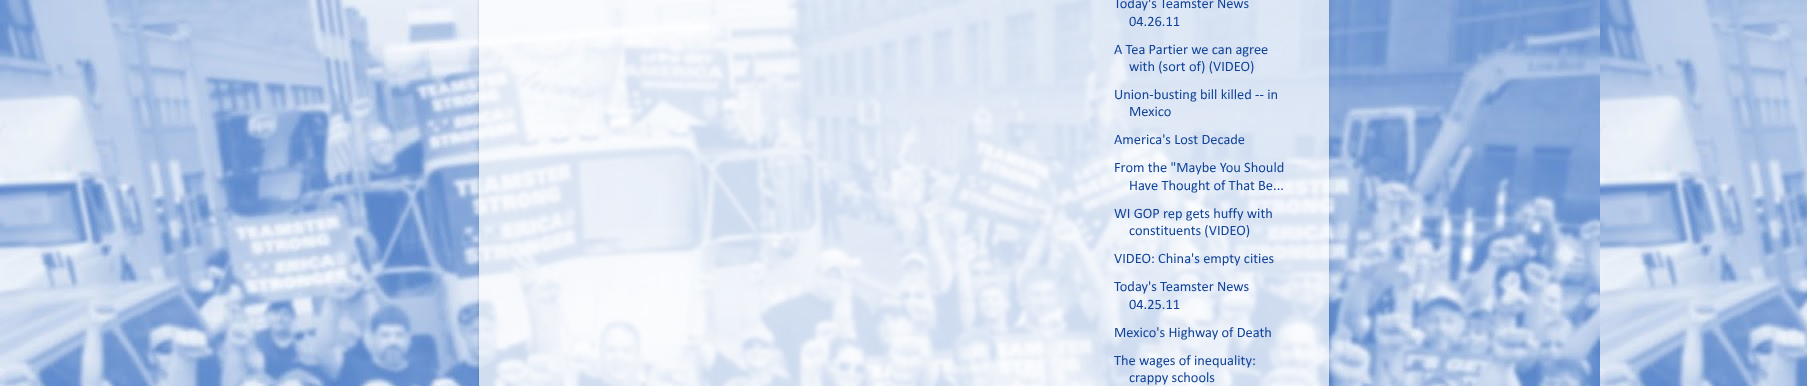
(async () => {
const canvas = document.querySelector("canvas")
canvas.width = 1807
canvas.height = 386
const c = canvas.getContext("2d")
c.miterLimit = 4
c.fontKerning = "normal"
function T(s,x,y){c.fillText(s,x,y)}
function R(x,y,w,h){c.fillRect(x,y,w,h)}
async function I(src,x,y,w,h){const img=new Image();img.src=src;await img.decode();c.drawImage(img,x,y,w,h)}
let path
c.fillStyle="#fff"
R(0,0,1807,386)
await I("1.png",0,0,1807,386)
c.save()
path = new Path2D("M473 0h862v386h-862zm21-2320h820c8.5 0 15 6.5 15 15v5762c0 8.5-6.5 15-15 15h-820c-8.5 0-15-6.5-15-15v-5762c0-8.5 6.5-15 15-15z")
c.clip(path,"evenodd")
c.fillStyle="#00000026"
c.filter="blur(1.5px)"
c.beginPath()
c.roundRect(479,-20,850,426,15)
c.fill()
c.filter="none"
c.restore()
c.fillStyle="#ffffffb3"
R(479,0,850,386)
c.font="14.4px Calibri"
c.fillStyle="#149"
T("Today's Teamster News",1114,8)
T("04.26.11",1129,26)
T("A Tea Partier we can agree",1114,54)
T("with (sort of) (VIDEO)",1129,71)
T("Union-busting bill killed -- in",1114,99)
T("Mexico",1129,116)
T("America's Lost Decade",1114,144)
T("From the \"Maybe You Should",1114,172)
T("Have Thought of That Be...",1129,190)
T("WI GOP rep gets huffy with",1114,218)
T("constituents (VIDEO)",1129,235)
T("VIDEO: China's empty cities",1114,263)
T("Today's Teamster News",1114,291)
T("04.25.11",1129,309)
T("Mexico's Highway of Death",1114,337)
T("The wages of inequality:",1114,365)
T("crappy schools",1129,382)
})()
